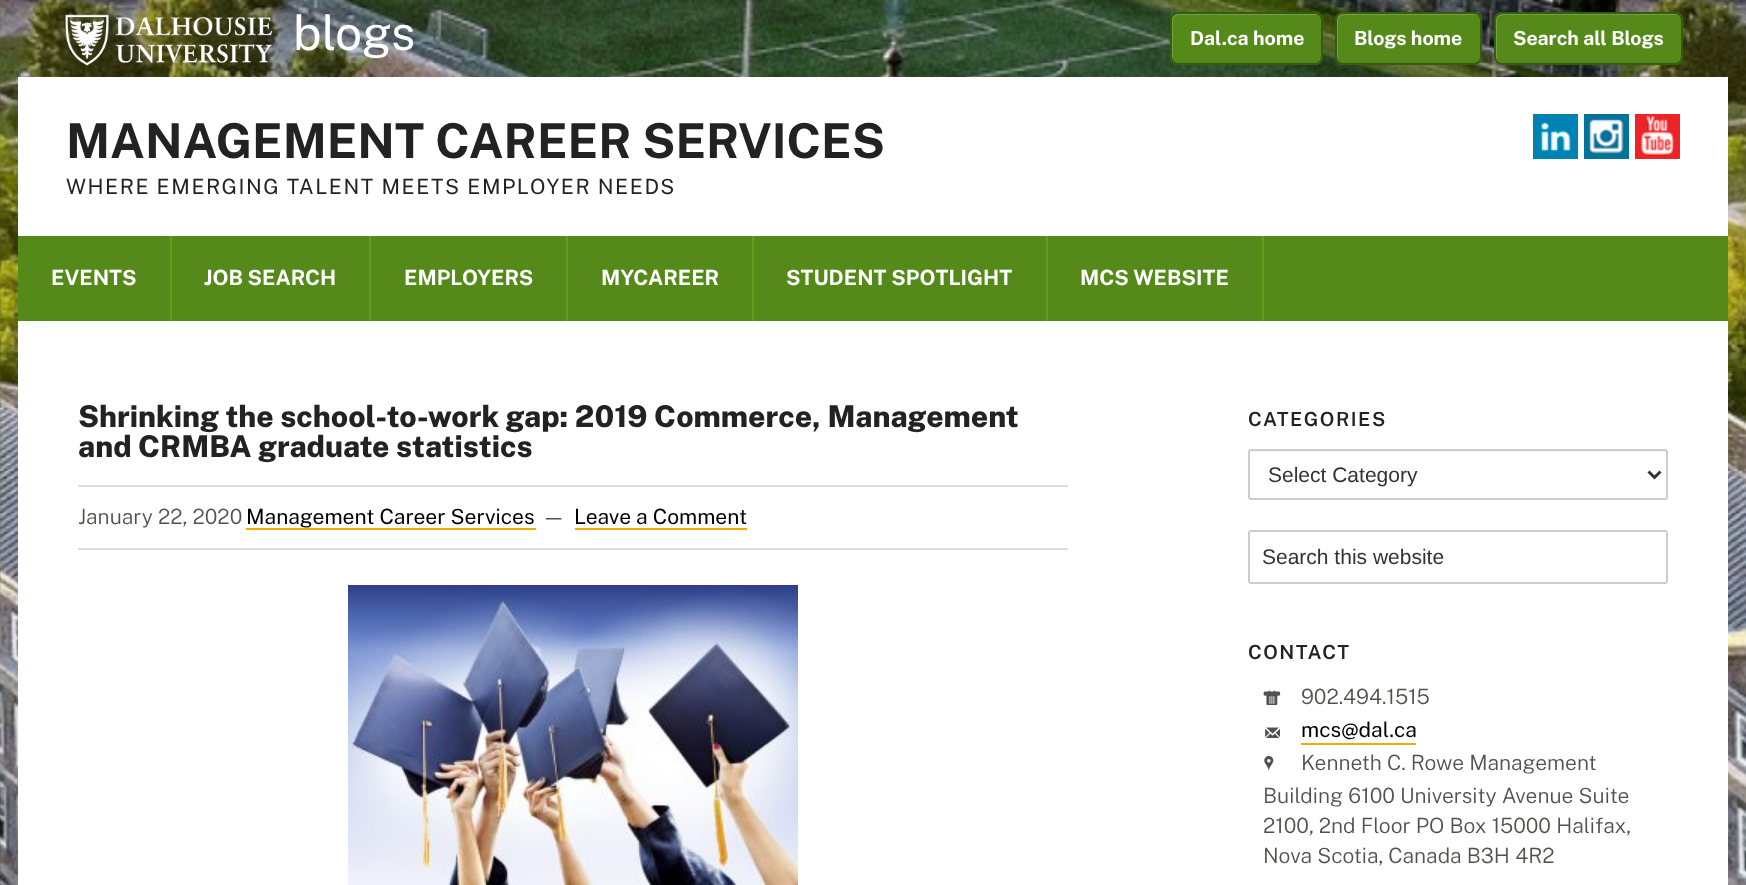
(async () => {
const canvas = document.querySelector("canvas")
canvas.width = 1746
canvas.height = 885
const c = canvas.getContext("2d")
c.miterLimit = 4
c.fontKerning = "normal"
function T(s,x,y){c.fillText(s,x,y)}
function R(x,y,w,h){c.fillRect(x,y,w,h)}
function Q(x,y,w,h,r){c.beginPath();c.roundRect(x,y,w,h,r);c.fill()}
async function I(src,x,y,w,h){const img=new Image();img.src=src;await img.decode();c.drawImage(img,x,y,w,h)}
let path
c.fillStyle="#fff"
R(0,0,1746,885)
await I("1.png",0,0,1746,885)
await I("2.png",65,14,208,52)
c.font="48px Public Sans"
T("blogs",293,50)
c.fillStyle="#55891a"
Q(1170,12,153,53,8)
c.fillStyle="#75a145"
path = new Path2D("M1179 15h139l3 2c-1-2-3-3-5-3h-138c-3 0-6 3-6 6v37c0 2 1 3 2 4c-1 0-1-2-1-3v-37c0-3 3-6 6-6z")
c.fill(path)
c.beginPath()
c.roundRect(1171,13,151,51,7)
c.strokeStyle="#395a11"
c.lineWidth=2
c.stroke()
c.font="bold 19.5px Public Sans"
c.fillStyle="#fff"
T("Dal.ca home",1190,45)
c.fillStyle="#55891a"
Q(1335,12,147,53,8)
c.fillStyle="#75a145"
path = new Path2D("M1344 15h133l3 2c-1-2-3-3-5-3h-132c-3 0-6 3-6 6v37c0 2 1 3 2 4c-1 0-1-2-1-3v-37c0-3 3-6 6-6z")
c.fill(path)
c.beginPath()
c.roundRect(1336,13,145,51,7)
c.stroke()
c.fillStyle="#fff"
T("Blogs home",1354,45)
c.fillStyle="#55891a"
Q(1494,12,189,53,8)
c.fillStyle="#75a145"
path = new Path2D("M1503 15h175l3 2c-1-2-3-3-5-3h-174c-3 0-6 3-6 6v37c0 2 1 3 2 4c-1 0-1-2-1-3v-37c0-3 3-6 6-6z")
c.fill(path)
c.beginPath()
c.roundRect(1495,13,187,51,7)
c.stroke()
c.fillStyle="#fff"
T("Search all Blogs",1513,45)
R(18,77,1710,808)
c.font="bold 48px Public Sans"
c.fillStyle="#222"
T("MANAGEMENT CAREER SERVICES",66,158)
c.letterSpacing="1.5px"
c.font="21px Public Sans"
T("WHERE EMERGING TALENT MEETS EMPLOYER NEEDS",66,194)
await I("3.png",1533,114,45,45)
await I("4.png",1584,114,45,45)
await I("5.png",1635,114,45,45)
c.fillStyle="#55891a"
R(18,236,1710,85)
c.fillStyle="#639d1e"
R(170,236,2,85)
c.letterSpacing="0px"
c.font="bold 21px Public Sans"
c.fillStyle="#fff"
T("EVENTS",51,285)
c.fillStyle="#639d1e"
R(369,236,2,85)
c.fillStyle="#fff"
T("JOB SEARCH",204,285)
c.fillStyle="#639d1e"
R(566,236,2,85)
c.fillStyle="#fff"
T("EMPLOYERS",404,285)
c.fillStyle="#639d1e"
R(752,236,2,85)
c.fillStyle="#fff"
T("MYCAREER",601,285)
c.fillStyle="#639d1e"
R(1046,236,2,85)
c.fillStyle="#fff"
T("STUDENT SPOTLIGHT",786,285)
c.fillStyle="#639d1e"
R(1262,236,2,85)
c.fillStyle="#fff"
T("MCS WEBSITE",1080,285)
c.font="800 30px Public Sans"
c.fillStyle="#222"
T("Shrinking the school-to-work gap: 2019 Commerce, Management",78,427)
T("and CRMBA graduate statistics",78,457)
c.fillStyle="#ddd"
R(78,485,990,2)
R(78,548,990,2)
c.font="300 21px Public Sans"
c.fillStyle="#52514f"
T("January 22, 2020",78,524)
c.font="21px Public Sans"
c.fillStyle="#000"
T("Management Career Services",246,524)
c.fillStyle="#f2ac00"
R(246,528,290,2)
c.font="300 21px Public Sans"
c.fillStyle="#52514f"
T("—",542,524)
c.font="21px Public Sans"
c.fillStyle="#000"
T("Leave a Comment",574,524)
c.fillStyle="#f2ac00"
R(575,528,172,2)
await I("6.png",348,585,450,300)
c.letterSpacing="1.5px"
c.font="600 19.5px Public Sans"
c.fillStyle="#222"
T("CATEGORIES",1248,426)
c.fillStyle="#f5f5f5"
path = new Path2D("M1251 452h414c1 0 1 0 1 1v45c1 0 1-1 1-2v-44c0-1-1-2-1-2h-414c-1 0-2 1-2 2v1c0-1 0-1 1-1z")
c.fill(path)
c.beginPath()
c.roundRect(1249,450,418,49,2)
c.strokeStyle="#ccc"
c.stroke()
path = new Path2D("M1648.5 471.5l6 6l6-6")
c.strokeStyle="#333"
c.lineWidth=3
c.stroke(path)
c.letterSpacing="0px"
c.font="21px Liberation Sans"
c.fillStyle="#333"
T("Select Category",1268,482)
c.beginPath()
c.roundRect(1249,531,418,52,2)
c.strokeStyle="#ccc"
c.lineWidth=2
c.stroke()
T("Search this website",1262,564)
c.letterSpacing="1.5px"
c.font="600 19.5px Public Sans"
c.fillStyle="#222"
T("CONTACT",1248,659)
await I("7.png",1263,690,18,15)
c.letterSpacing="0px"
c.font="300 21px Public Sans"
c.fillStyle="#52514f"
T("902.494.1515",1301,704)
await I("8.png",1265,727,15,11)
c.font="21px Public Sans"
c.fillStyle="#000"
T("mcs@dal.ca",1301,737)
c.fillStyle="#f2ac00"
R(1301,743,115,2)
c.font="21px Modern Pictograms"
c.fillStyle="#52514f"
T(",",1263,770)
c.font="300 21px Public Sans"
T("Kenneth C. Rowe Management",1301,770)
T("Building 6100 University Avenue Suite",1263,803)
T("2100, 2nd Floor PO Box 15000 Halifax,",1263,833)
T("Nova Scotia, Canada B3H 4R2",1263,863)
})()
